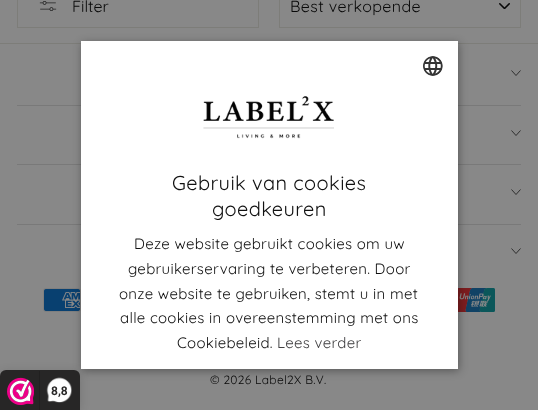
(async () => {
const canvas = document.querySelector("canvas")
canvas.width = 538
canvas.height = 410
const c = canvas.getContext("2d")
c.miterLimit = 4
c.fontKerning = "normal"
function T(s,x,y){c.fillText(s,x,y)}
function R(x,y,w,h){c.fillRect(x,y,w,h)}
async function I(src,x,y,w,h){const img=new Image();img.src=src;await img.decode();c.drawImage(img,x,y,w,h)}
let path
c.fillStyle="#888"
R(0,0,538,410)
c.strokeStyle="#7d7d79"
c.strokeRect(17.5,-.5,241,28)
await I("1.png",39,1,18,10)
c.font="16px Quicksand"
c.fillStyle="#090909"
T("Filter",72,12)
await I("2.png",499,3,11,6)
c.strokeRect(279.5,-.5,241,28)
c.letterSpacing="0.4px"
T("Best verkopende",290,12)
c.fillStyle="#7d7d79"
R(0,43,538,1)
path = new Path2D("M511.5 70.5l4.5 5l4.5-5")
c.strokeStyle="#090909"
c.lineWidth=0.7
c.stroke(path)
c.fillStyle="#797979"
R(17,105,504,1)
path = new Path2D("M511.5 130.5l4.5 5l4.5-5")
c.stroke(path)
R(17,164,504,1)
path = new Path2D("M511.5 189.5l4.5 5l4.5-5")
c.stroke(path)
R(17,224,504,1)
path = new Path2D("M511.5 248.5l4.5 5l4.5-5")
c.stroke(path)
await I("3.png",43,288,38,24)
await I("4.png",458,288,37,24)
c.letterSpacing="0.3px"
c.font="12px Quicksand"
c.fillStyle="#090909"
T("© 2026 Label2X B.V.",210,384)
c.fillStyle="#00000059"
c.filter="blur(4px)"
c.beginPath()
c.rect(82,43,377,328)
c.fill()
c.filter="none"
c.fillStyle="#fff"
R(81,41,377,328)
await I("5.png",423,56,20,20)
await I("6.png",203,96,131,43)
c.letterSpacing="0.4px"
c.font="20px Quicksand"
c.fillStyle="#111"
T("Gebruik van cookies",172,190)
T("goedkeuren",212,216)
c.letterSpacing="0.3px"
c.font="15px Quicksand"
T("Deze website gebruikt cookies om uw",134,249)
T("gebruikerservaring te verbeteren. Door",128,274)
T("onze website te gebruiken, stemt u in met",119,299)
T("alle cookies in overeenstemming met ons",120,323)
T("Cookiebeleid.",177,348)
c.fillStyle="#414042"
T("Lees verder",277,348)
c.fillStyle="#00000026"
c.filter="blur(5px)"
c.beginPath()
c.roundRect(0,372,80,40,6)
c.fill()
c.filter="none"
c.fillStyle="#272626"
c.beginPath()
c.roundRect(0,370,80,40,[6,6,0,0])
c.fill()
await I("7.png",7,377,27,28)
c.fillStyle="#212020"
R(39,371,1,39)
await I("8.png",46,377,26,26)
c.letterSpacing="0px"
c.font="bold 12px Roboto"
c.fillStyle="#272626"
T("8,8",51,395)
})()
